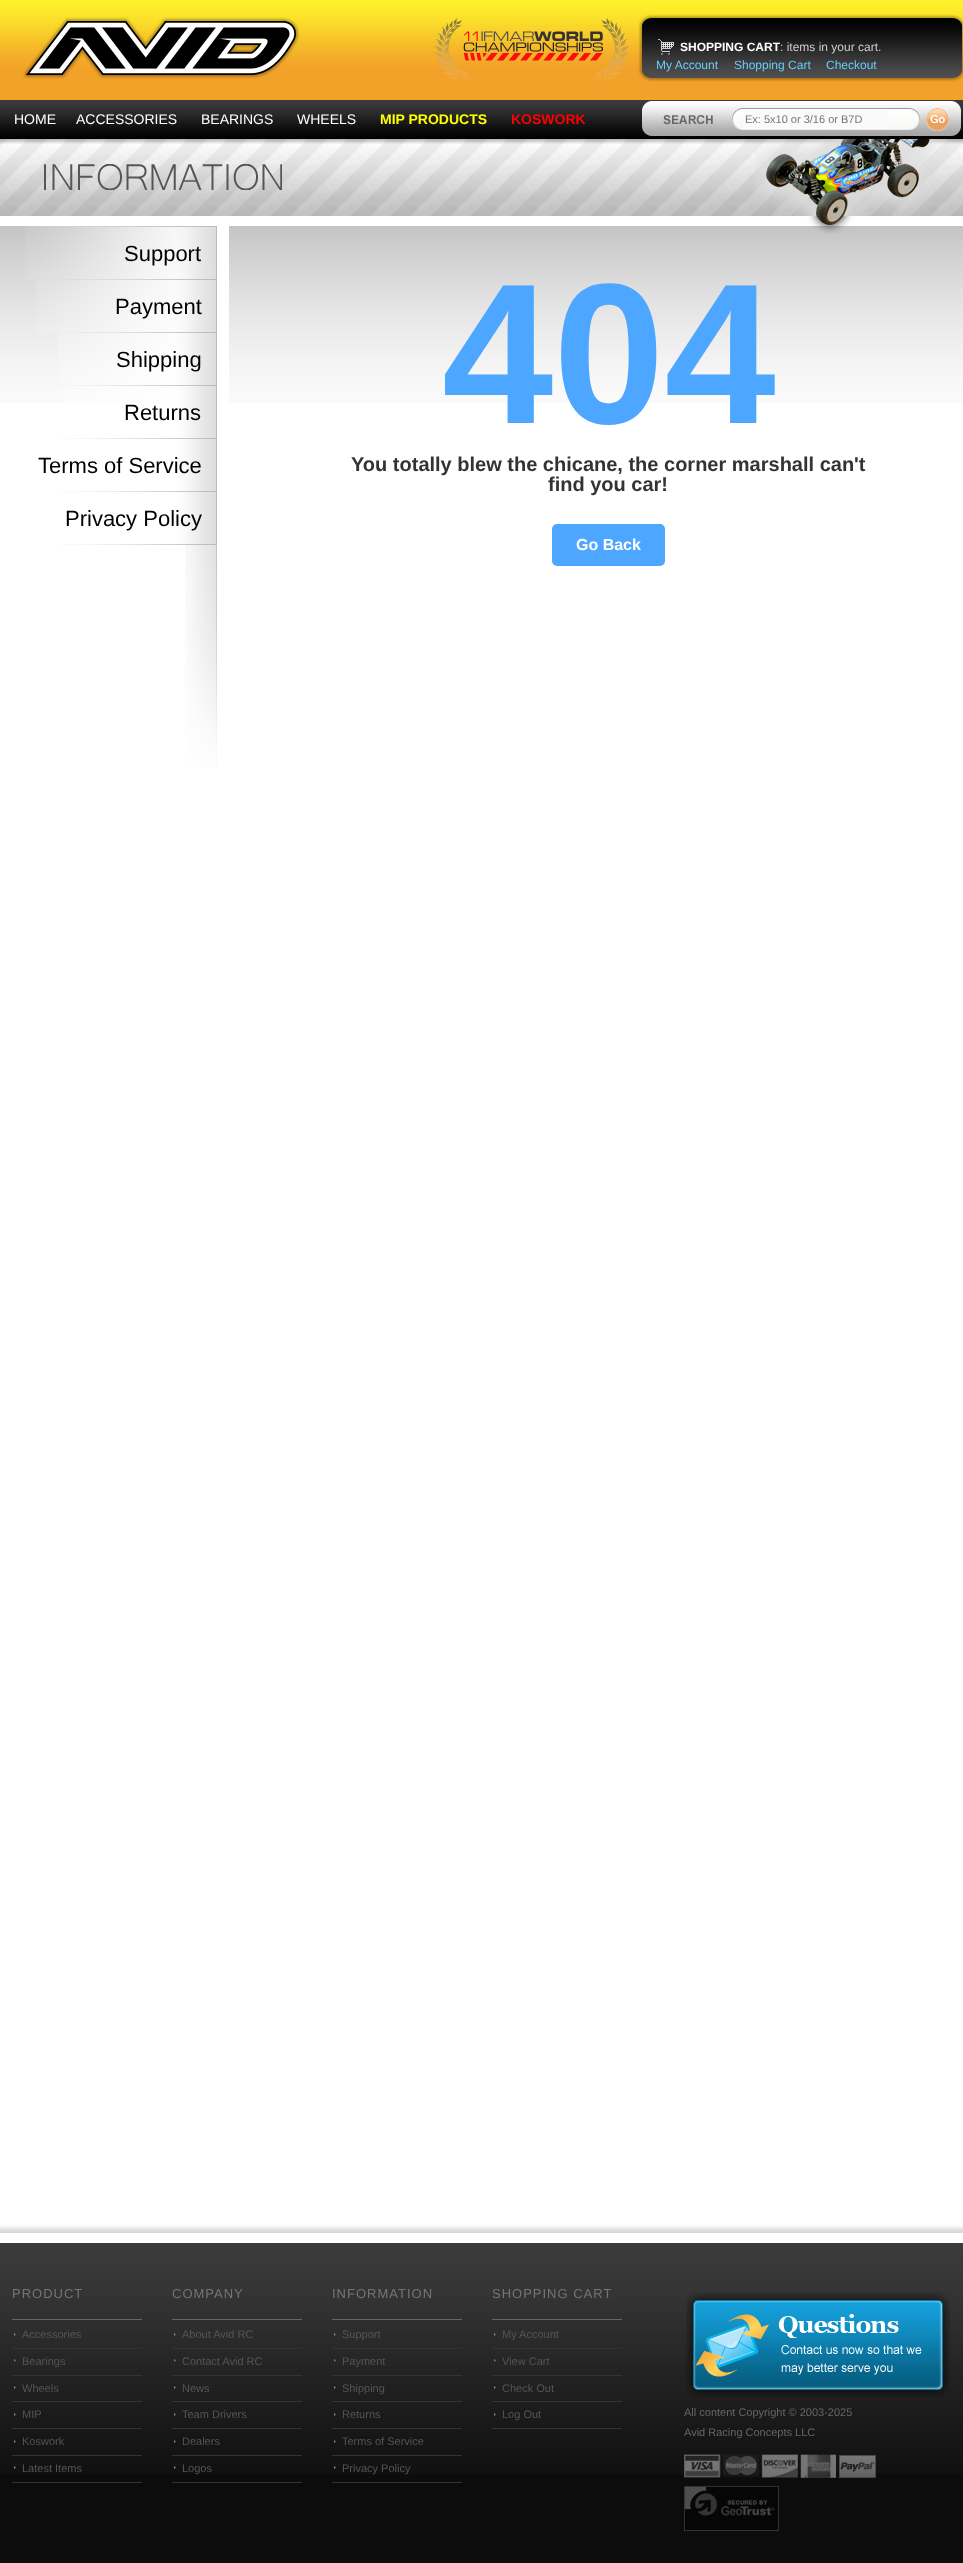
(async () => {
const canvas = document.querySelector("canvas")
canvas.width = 963
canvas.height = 2563
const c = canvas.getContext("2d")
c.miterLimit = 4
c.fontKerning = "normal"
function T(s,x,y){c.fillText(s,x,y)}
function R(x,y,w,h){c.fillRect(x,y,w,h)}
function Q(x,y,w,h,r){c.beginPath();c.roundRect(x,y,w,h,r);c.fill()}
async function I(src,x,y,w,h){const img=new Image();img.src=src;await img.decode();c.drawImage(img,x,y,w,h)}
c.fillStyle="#fff"
R(0,0,963,2563)
await I("1.png",0,0,963,403)
await I("2.png",23,17,277,62)
await I("3.png",434,18,196,63)
await I("4.png",638,14,325,68)
await I("5.png",658,39,16,16)
c.font="bold 12px Liberation Sans"
T("SHOPPING CART",680,51)
c.font="12px Liberation Sans"
c.fillStyle="#ccc"
T(": items in your cart.",780,51)
c.fillStyle="#6cf"
T("My Account",656,69)
T("Shopping Cart",734,69)
T("Checkout",826,69)
c.font="14px Liberation Sans"
c.fillStyle="#fff"
T("HOME",14,124)
T("ACCESSORIES",76,124)
T("BEARINGS",201,124)
T("WHEELS",297,124)
c.font="bold 14px Liberation Sans"
c.fillStyle="#ff0"
T("MIP PRODUCTS",380,124)
c.fillStyle="#f00"
T("KOSWORK",511,124)
await I("6.png",642,101,282,35)
c.fillStyle="#fafafa"
R(743,110,146,19)
c.font="11px Liberation Sans"
c.fillStyle="#757575"
T("Ex: 5x10 or 3/16 or B7D",745,123)
await I("7.png",924,101,37,35)
await I("8.png",44,164,238,26)
await I("9.png",755,139,193,95)
await I("10.png",25,226,192,1)
await I("11.png",25,227,192,53)
c.font="22px Liberation Sans"
c.fillStyle="#000"
T("Support",124,261)
await I("12.png",36,280,181,53)
T("Payment",115,314)
await I("13.png",58,333,159,53)
T("Shipping",116,367)
await I("14.png",60,386,157,53)
T("Returns",124,420)
await I("15.png",60,439,157,53)
T("Terms of Service",38,473)
await I("15.png",60,492,157,53)
T("Privacy Policy",65,526)
await I("16.png",185,545,32,222)
c.fillStyle="#fff"
R(217,226,12,177)
c.font="bold 200px Liberation Sans"
c.fillStyle="#4da6ff"
T("404",442,423)
c.font="bold 20px Liberation Sans"
c.fillStyle="#333"
T("You totally blew the chicane, the corner marshall can't",351,471)
T("find you car!",548,491)
c.fillStyle="#4da6ff"
Q(552,524,113,42,5)
c.font="bold 16px Liberation Sans"
c.fillStyle="#fff"
T("Go Back",576,550)
c.fillStyle="#0c0c0c"
R(0,2474,963,89)
await I("17.png",0,2213,963,261)
c.fillStyle="#666"
R(12,2319,130,1)
c.letterSpacing="1px"
c.font="13px Liberation Sans"
c.fillStyle="#757575"
T("PRODUCT",12,2298)
c.fillStyle="#333"
R(12,2348,130,1)
await I("18.png",14,2333,2,3)
c.letterSpacing="0px"
c.font="11px Liberation Sans"
c.fillStyle="#555"
T("Accessories",22,2338)
c.fillStyle="#333"
R(12,2375,130,1)
await I("19.png",14,2359,2,3)
c.fillStyle="#555"
T("Bearings",22,2365)
c.fillStyle="#333"
R(12,2401,130,1)
await I("20.png",14,2386,2,3)
c.fillStyle="#555"
T("Wheels",22,2392)
c.fillStyle="#333"
R(12,2428,130,1)
await I("21.png",14,2413,2,3)
c.fillStyle="#555"
T("MIP",22,2418)
c.fillStyle="#333"
R(12,2455,130,1)
await I("22.png",14,2440,2,3)
c.fillStyle="#555"
T("Koswork",22,2445)
c.fillStyle="#333"
R(12,2482,130,1)
await I("23.png",14,2466,2,3)
c.fillStyle="#555"
T("Latest Items",22,2472)
c.fillStyle="#666"
R(172,2319,130,1)
c.letterSpacing="1px"
c.font="13px Liberation Sans"
c.fillStyle="#757575"
T("COMPANY",172,2298)
c.fillStyle="#333"
R(172,2348,130,1)
await I("18.png",174,2333,2,3)
c.letterSpacing="0px"
c.font="11px Liberation Sans"
c.fillStyle="#555"
T("About Avid RC",182,2338)
c.fillStyle="#333"
R(172,2375,130,1)
await I("19.png",174,2359,2,3)
c.fillStyle="#555"
T("Contact Avid RC",182,2365)
c.fillStyle="#333"
R(172,2401,130,1)
await I("20.png",174,2386,2,3)
c.fillStyle="#555"
T("News",182,2392)
c.fillStyle="#333"
R(172,2428,130,1)
await I("21.png",174,2413,2,3)
c.fillStyle="#555"
T("Team Drivers",182,2418)
c.fillStyle="#333"
R(172,2455,130,1)
await I("22.png",174,2440,2,3)
c.fillStyle="#555"
T("Dealers",182,2445)
c.fillStyle="#333"
R(172,2482,130,1)
await I("23.png",174,2466,2,3)
c.fillStyle="#555"
T("Logos",182,2472)
c.fillStyle="#666"
R(332,2319,130,1)
c.letterSpacing="1px"
c.font="13px Liberation Sans"
c.fillStyle="#757575"
T("INFORMATION",332,2298)
c.fillStyle="#333"
R(332,2348,130,1)
await I("18.png",334,2333,2,3)
c.letterSpacing="0px"
c.font="11px Liberation Sans"
c.fillStyle="#555"
T("Support",342,2338)
c.fillStyle="#333"
R(332,2375,130,1)
await I("19.png",334,2359,2,3)
c.fillStyle="#555"
T("Payment",342,2365)
c.fillStyle="#333"
R(332,2401,130,1)
await I("20.png",334,2386,2,3)
c.fillStyle="#555"
T("Shipping",342,2392)
c.fillStyle="#333"
R(332,2428,130,1)
await I("21.png",334,2413,2,3)
c.fillStyle="#555"
T("Returns",342,2418)
c.fillStyle="#333"
R(332,2455,130,1)
await I("22.png",334,2440,2,3)
c.fillStyle="#555"
T("Terms of Service",342,2445)
c.fillStyle="#333"
R(332,2482,130,1)
await I("23.png",334,2466,2,3)
c.fillStyle="#555"
T("Privacy Policy",342,2472)
c.fillStyle="#666"
R(492,2319,130,1)
c.letterSpacing="1px"
c.font="13px Liberation Sans"
c.fillStyle="#757575"
T("SHOPPING CART",492,2298)
c.fillStyle="#333"
R(492,2348,130,1)
await I("18.png",494,2333,2,3)
c.letterSpacing="0px"
c.font="11px Liberation Sans"
c.fillStyle="#555"
T("My Account",502,2338)
c.fillStyle="#333"
R(492,2375,130,1)
await I("19.png",494,2359,2,3)
c.fillStyle="#555"
T("View Cart",502,2365)
c.fillStyle="#333"
R(492,2401,130,1)
await I("20.png",494,2386,2,3)
c.fillStyle="#555"
T("Check Out",502,2392)
c.fillStyle="#333"
R(492,2428,130,1)
await I("21.png",494,2413,2,3)
c.fillStyle="#555"
T("Log Out",502,2418)
await I("24.png",686,2292,264,104)
c.fillStyle="#666"
T("All content Copyright © 2003-2025",684,2416)
T("Avid Racing Concepts LLC",684,2436)
await I("25.png",684,2454,192,77)
})()
